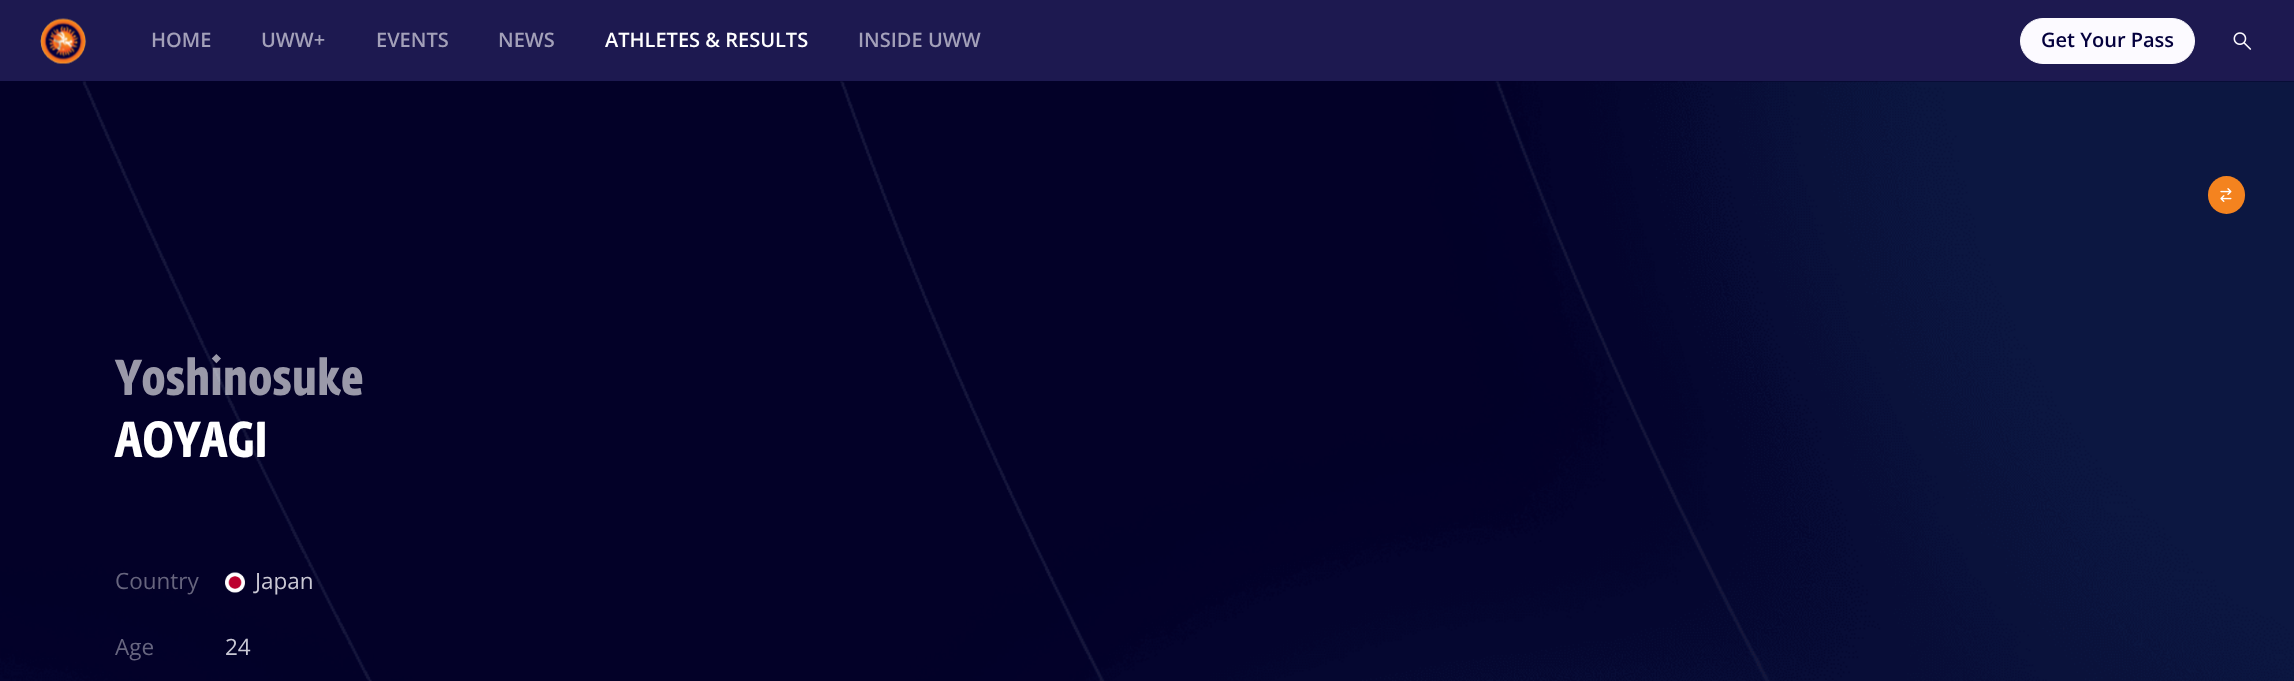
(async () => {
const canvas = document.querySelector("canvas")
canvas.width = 2294
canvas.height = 681
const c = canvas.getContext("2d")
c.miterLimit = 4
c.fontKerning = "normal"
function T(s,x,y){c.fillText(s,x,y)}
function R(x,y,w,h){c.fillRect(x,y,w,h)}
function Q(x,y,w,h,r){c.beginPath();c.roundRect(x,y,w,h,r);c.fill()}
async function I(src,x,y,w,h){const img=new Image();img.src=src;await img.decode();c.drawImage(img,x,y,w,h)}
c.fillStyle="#030128"
R(0,0,2294,681)
c.fillStyle="#1d1950"
R(0,0,2294,81)
await I("1.png",40,18,47,46)
c.font="600 20px Open Sans"
c.fillStyle="#a3a0b9"
T("HOME",151,47)
T("UWW+",261,47)
T("EVENTS",376,47)
T("NEWS",498,47)
c.fillStyle="#fff"
T("ATHLETES & RESULTS",605,47)
c.fillStyle="#a3a0b9"
T("INSIDE UWW",858,47)
c.fillStyle="#fcfaff"
c.beginPath()
c.roundRect(2020.5,18.5,174,45,22.5)
c.fill()
c.strokeStyle="#fcfaff"
c.stroke()
c.fillStyle="#04003d"
T("Get Your Pass",2041,47)
await I("2.png",2233,32,19,18)
c.font="bold 50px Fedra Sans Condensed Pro"
c.fillStyle="#9a99a9"
T("Yoshinosuke",115,395)
c.fillStyle="#fff"
T("AOYAGI",115,457)
c.font="22.5px Open Sans"
c.fillStyle="#67657e"
T("Country",115,589)
await I("5.png",225,572,20,21)
c.fillStyle="#cac8d4"
T("Japan",255,589)
c.fillStyle="#67657e"
T("Age",115,655)
c.fillStyle="#cac8d4"
T("24",225,655)
await I("3.png",0,81,2294,600)
c.fillStyle="#f4831f"
Q(2208,176,37,38,18.5)
await I("4.png",2220,188,12,14)
})()
